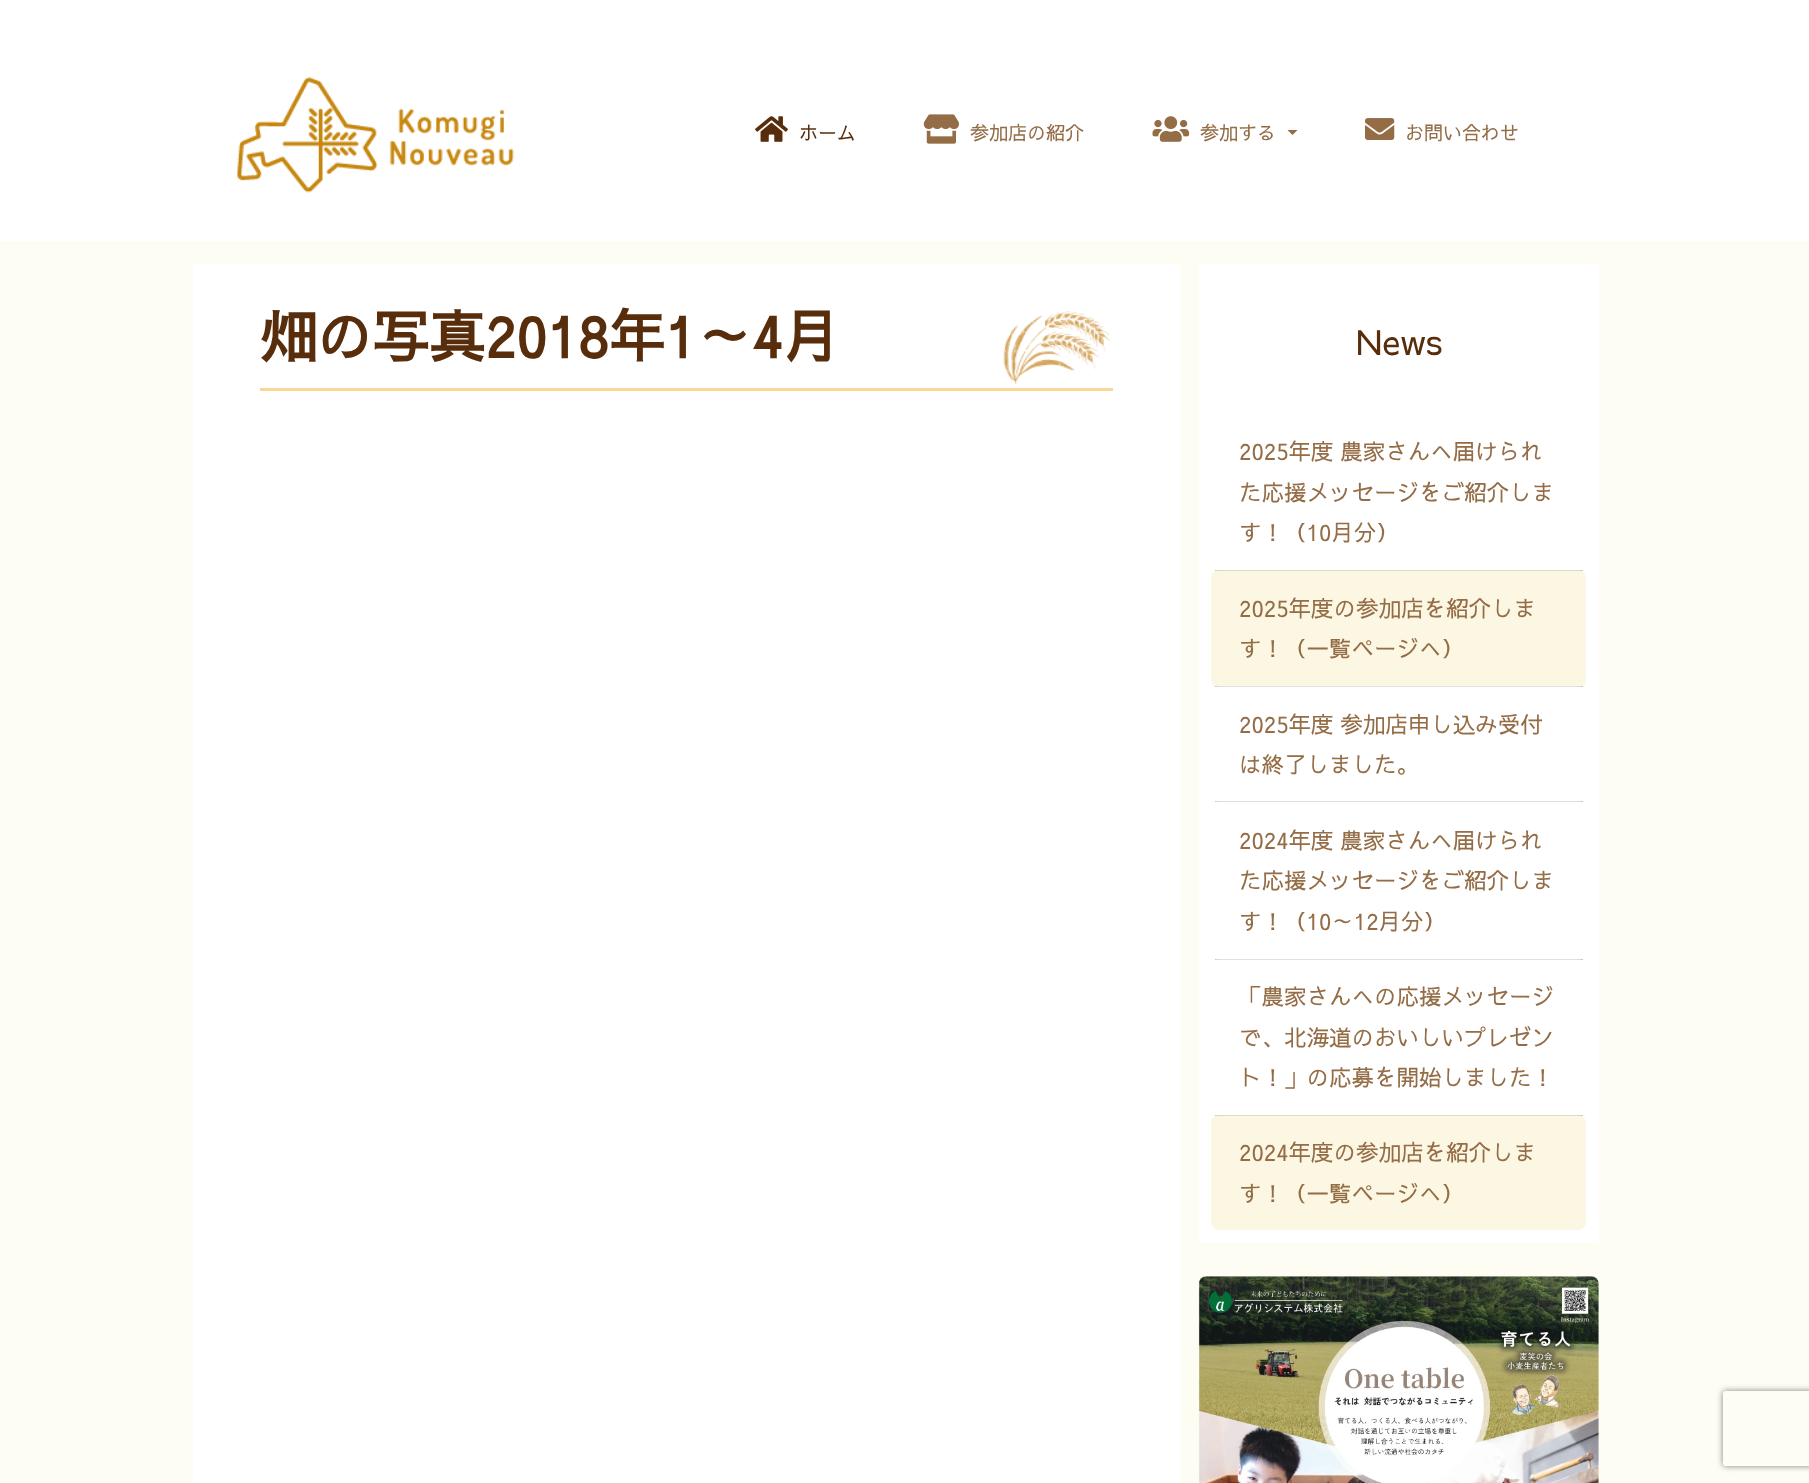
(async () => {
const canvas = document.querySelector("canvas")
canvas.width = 1809
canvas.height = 1483
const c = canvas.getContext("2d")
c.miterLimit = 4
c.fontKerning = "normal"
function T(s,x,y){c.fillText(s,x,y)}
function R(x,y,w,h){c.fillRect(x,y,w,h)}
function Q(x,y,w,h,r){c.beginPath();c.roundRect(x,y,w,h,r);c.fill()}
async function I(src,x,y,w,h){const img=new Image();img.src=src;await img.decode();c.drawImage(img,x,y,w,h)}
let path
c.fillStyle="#fff"
R(0,0,1809,1483)
await I("1.png",236,77,278,116)
await I("2.png",755,116,33,26)
c.font="19px Sawarabi Gothic"
c.fillStyle="#572d0c"
T("ホーム",799,140)
await I("3.png",923,114,36,30)
c.fillStyle="#946c45"
T("参加店の紹介",970,140)
await I("4.png",1152,116,38,26)
T("参加する",1200,140)
path = new Path2D("M1287.5 130h10l-5 5z")
c.fill(path)
await I("5.png",1365,118,30,22)
T("お問い合わせ",1405,140)
c.fillStyle="#fefdf3"
R(0,241,1809,1242)
c.fillStyle="#fff"
R(193,264,987,1219)
await I("6.png",1003,311,107,74)
c.fillStyle="#f7d799"
R(260,388,853,3)
c.font="bold 56.25px Sawarabi Gothic"
c.fillStyle="#572d0c"
T("畑の写真2018年1～4月",260,358)
c.fillStyle="#fff"
R(1199,264,400,979)
c.font="34px Sawarabi Gothic"
c.fillStyle="#572d0c"
T("News",1356,355)
c.fillStyle="#dfdfdf"
R(1215,570,368,1)
c.font="22.5px Sawarabi Gothic"
c.fillStyle="#946c45"
T("2025年度 農家さんへ届けられ",1239,460)
T("た応援メッセージをご紹介しま",1239,501)
T("す！（10月分）",1239,541)
c.fillStyle="#fcf7e3"
Q(1211,570,375,118,8)
c.fillStyle="#0000001f"
R(1215,570,368,1)
R(1215,686,368,1)
c.fillStyle="#946c45"
T("2025年度の参加店を紹介しま",1239,617)
T("す！（一覧ページへ）",1239,657)
c.fillStyle="#fff"
Q(1211,686,375,117,8)
c.fillStyle="#0000001f"
R(1215,686,368,1)
c.fillStyle="#dfdfdf"
R(1215,801,368,1)
c.fillStyle="#946c45"
T("2025年度 参加店申し込み受付",1239,733)
T("は終了しました。",1239,773)
c.fillStyle="#fff"
Q(1211,801,375,159,8)
c.fillStyle="#0000001f"
R(1215,801,368,1)
c.fillStyle="#dfdfdf"
R(1215,959,368,1)
c.fillStyle="#946c45"
T("2024年度 農家さんへ届けられ",1239,849)
T("た応援メッセージをご紹介しま",1239,889)
T("す！（10～12月分）",1239,930)
c.fillStyle="#fff"
Q(1211,959,375,157,8)
c.fillStyle="#0000001f"
R(1215,959,368,1)
c.fillStyle="#dfdfdf"
R(1215,1115,368,1)
c.fillStyle="#946c45"
T("「農家さんへの応援メッセージ",1239,1005)
T("で、北海道のおいしいプレゼン",1239,1046)
T("ト！」の応募を開始しました！",1239,1086)
c.fillStyle="#fcf7e3"
Q(1211,1115,375,115,8)
c.fillStyle="#0000001f"
R(1215,1115,368,1)
c.fillStyle="#946c45"
T("2024年度の参加店を紹介しま",1239,1161)
T("す！（一覧ページへ）",1239,1202)
await I("7.png",1198,1276,401,207)
c.save()
path = new Path2D("M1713 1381h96v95h-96zm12.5 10h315c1.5 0 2.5 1 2.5 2.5v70c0 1.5-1 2.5-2.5 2.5h-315c-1.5 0-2.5-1-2.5-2.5v-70c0-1.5 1-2.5 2.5-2.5z")
c.clip(path,"evenodd")
c.fillStyle="#808080"
c.filter="blur(3px)"
c.beginPath()
c.roundRect(1723,1391,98,75,2.5)
c.fill()
c.filter="none"
c.restore()
})()
